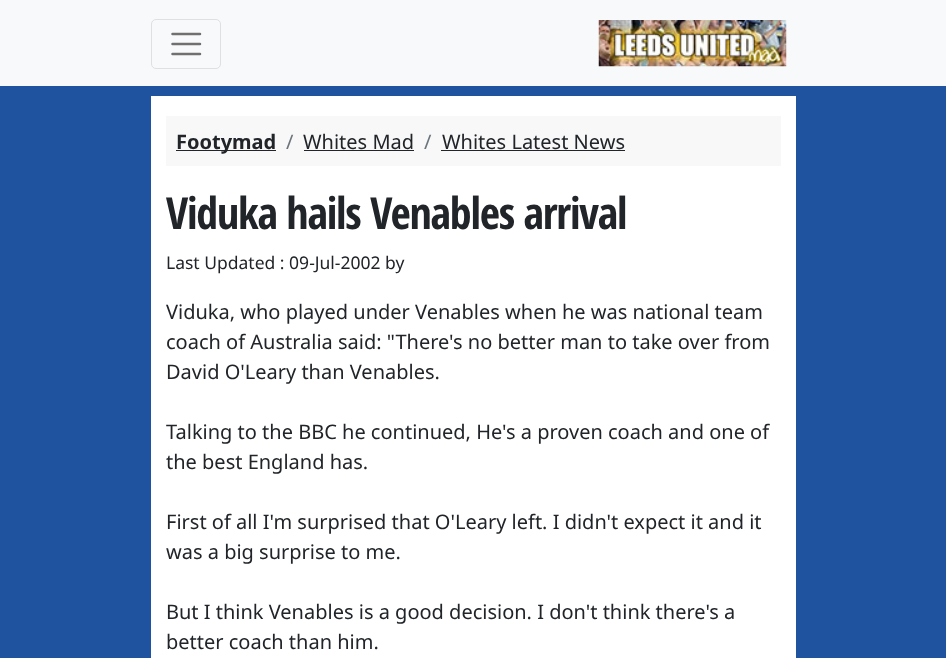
(async () => {
const canvas = document.querySelector("canvas")
canvas.width = 946
canvas.height = 658
const c = canvas.getContext("2d")
c.miterLimit = 4
c.fontKerning = "normal"
function T(s,x,y){c.fillText(s,x,y)}
function R(x,y,w,h){c.fillRect(x,y,w,h)}
async function I(src,x,y,w,h){const img=new Image();img.src=src;await img.decode();c.drawImage(img,x,y,w,h)}
let path
c.fillStyle="#1f539f"
R(0,0,946,658)
c.fillStyle="#f8f9fa"
R(0,0,946,86)
c.beginPath()
c.roundRect(151.5,19.5,69,49,4.5)
c.strokeStyle="#dfe0e1"
c.stroke()
path = new Path2D("M172.5 34h27.5m-27.5 10h27.5m-27.5 10h27.5")
c.strokeStyle="#707071"
c.lineWidth=2.5
c.lineCap="round"
c.stroke(path)
await I("1.png",598,20,189,47)
c.fillStyle="#fff"
R(151,96,645,562)
c.fillStyle="#f8f8f8"
R(166,116,615,50)
c.fillStyle="#212529"
R(176,150,100,1)
c.font="bold 20px Noto Sans"
T("Footymad",176,149)
c.font="20px Noto Sans"
c.fillStyle="#6c757d"
T("/",286,149)
c.fillStyle="#212529"
T("Whites Mad",303,149)
R(304,150,110,1)
c.fillStyle="#6c757d"
T("/",424,149)
c.fillStyle="#212529"
T("Whites Latest News",442,149)
R(441,150,184,1)
c.letterSpacing="-1.25px"
c.font="bold 44px Open Sans Condensed"
T("Viduka hails Venables arrival",166,229)
c.letterSpacing="0px"
c.font="17.5px Noto Sans"
T("Last Updated : 09-Jul-2002 by",166,269)
c.font="20px Noto Sans"
T("Viduka, who played under Venables when he was national team",166,319)
T("coach of Australia said: \"There's no better man to take over from",166,349)
T("David O'Leary than Venables.",166,379)
T("Talking to the BBC he continued, He's a proven coach and one of",166,439)
T("the best England has.",166,469)
T("First of all I'm surprised that O'Leary left. I didn't expect it and it",166,529)
T("was a big surprise to me.",166,559)
T("But I think Venables is a good decision. I don't think there's a",166,619)
T("better coach than him.",166,649)
})()
